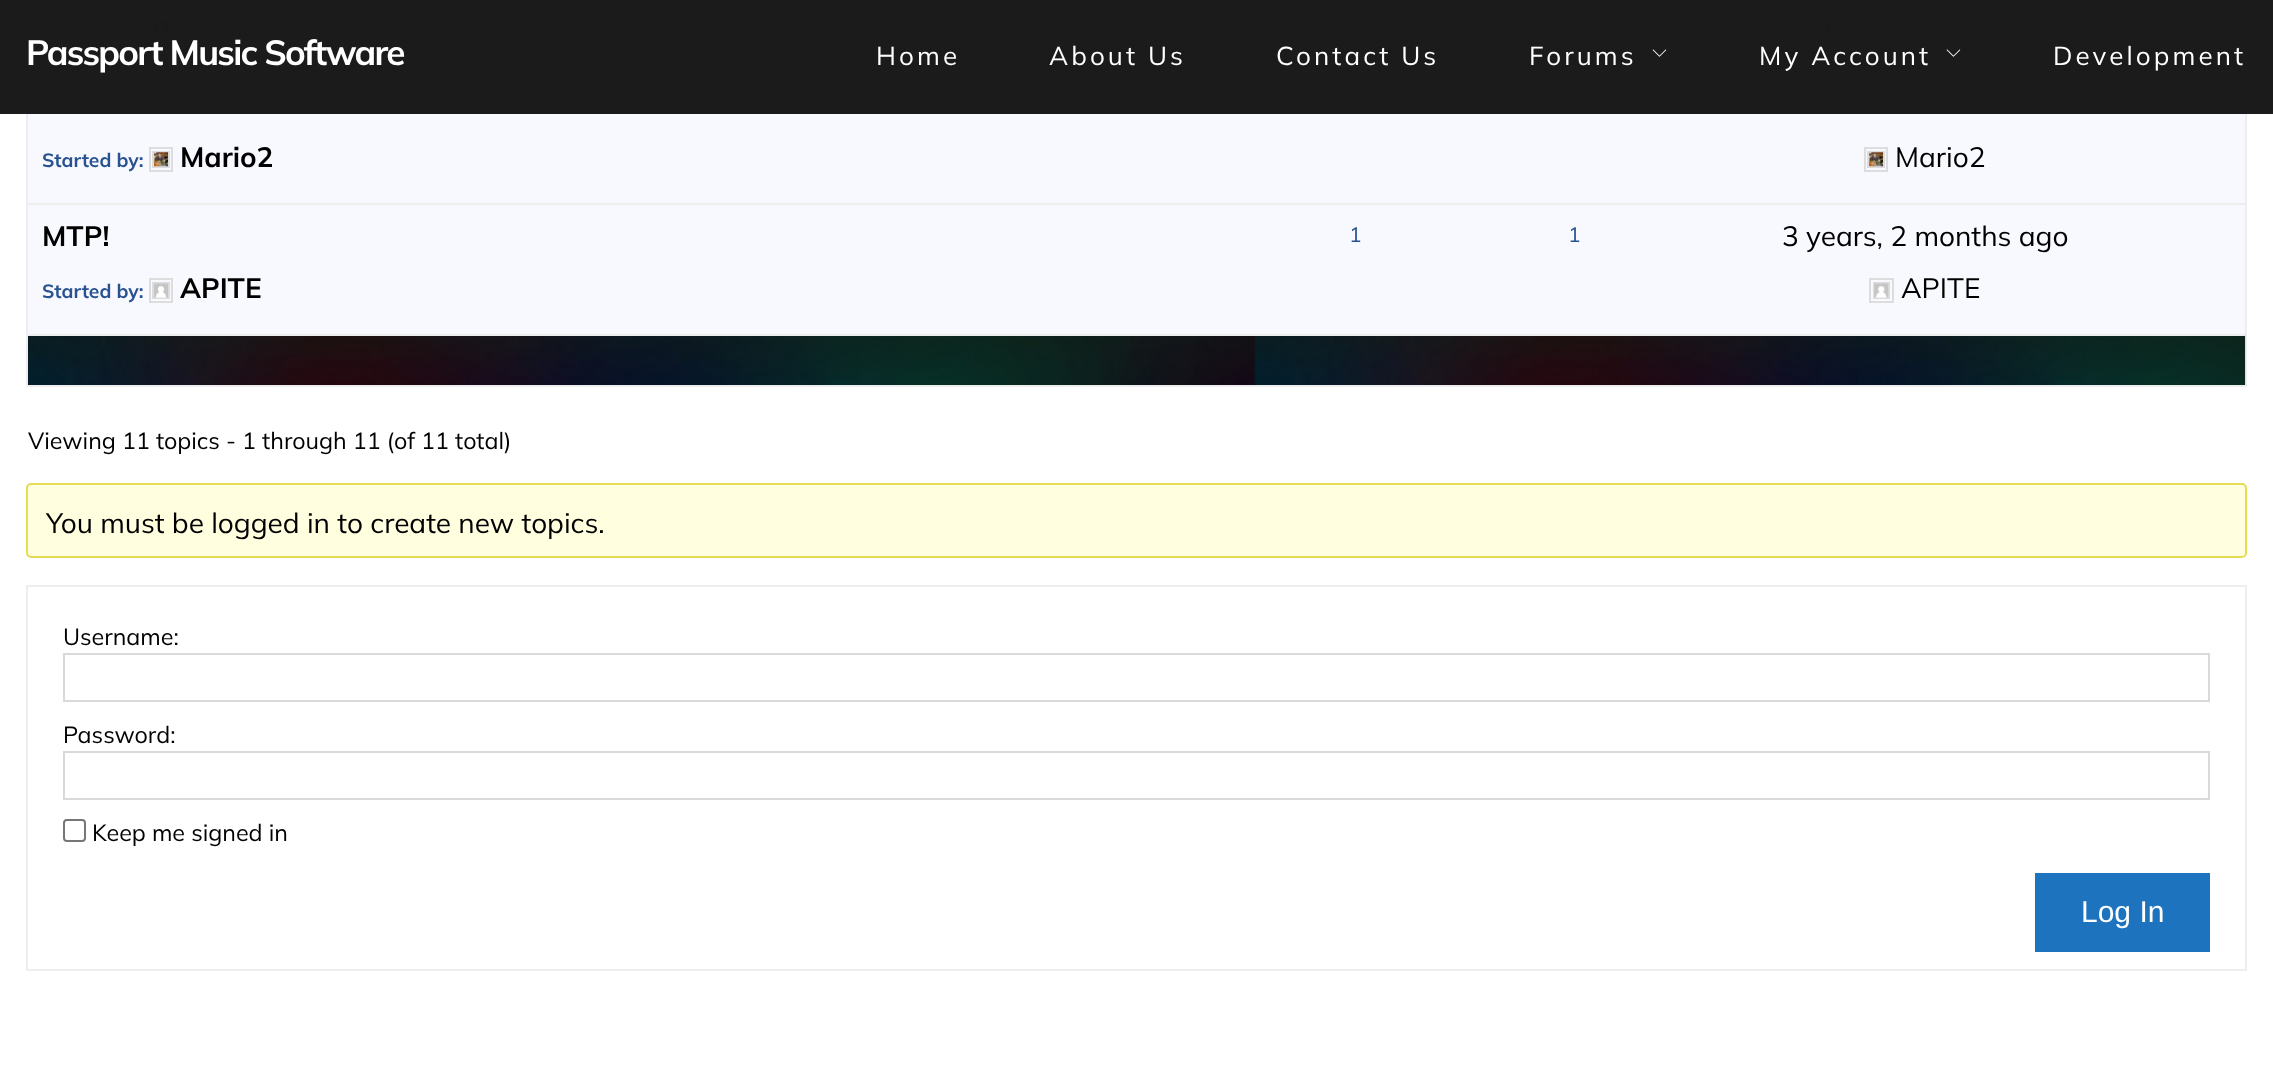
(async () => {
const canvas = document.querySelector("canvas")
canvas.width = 2273
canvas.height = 1077
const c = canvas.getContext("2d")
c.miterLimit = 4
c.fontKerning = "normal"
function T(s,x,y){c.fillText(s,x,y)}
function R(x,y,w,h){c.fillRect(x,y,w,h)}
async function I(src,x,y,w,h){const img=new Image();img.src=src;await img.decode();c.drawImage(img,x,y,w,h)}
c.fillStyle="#fff"
R(0,0,2273,1077)
c.strokeStyle="#eee"
c.lineWidth=2
c.strokeRect(27,-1,2219,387)
c.fillStyle="#f8f8ff"
R(28,0,2217,72)
c.strokeStyle="#ddd"
c.strokeRect(150,17,22,22)
c.strokeRect(153,20,16,16)
await I("2.png",154,21,14,14)
c.strokeRect(1821,17,23,22)
c.strokeRect(1825,20,15,16)
await I("3.png",1825,21,15,14)
R(28,74,2217,129)
c.fillStyle="#eee"
R(28,72,2217,2)
c.fillStyle="#0d0d0efa"
R(0,0,2273,114)
c.fillStyle="#ffffff0a"
R(0,0,2273,114)
c.letterSpacing="-1.75px"
c.font="bold 35px Mulish"
c.fillStyle="#fff"
T("Passport Music Software",26,65)
c.letterSpacing="3.1px"
c.font="26px Mulish"
T("Home",876,65)
T("About Us",1049,65)
T("Contact Us",1276,65)
T("Forums",1529,65)
await I("1.png",1652,49,15,8)
T("My Account",1759,65)
await I("1.png",1946,49,15,8)
T("Development",2053,65)
c.letterSpacing="0px"
c.font="bold 19.25px Mulish"
c.fillStyle="#285390"
T("Started by:",42,167)
c.strokeRect(150,148,22,23)
c.strokeRect(153,152,16,15)
await I("4.png",154,152,14,15)
c.font="bold 28px Mulish"
c.fillStyle="#000"
T("Mario2",180,167)
c.strokeRect(1865,148,22,23)
c.strokeRect(1868,152,16,15)
await I("4.png",1869,152,14,15)
c.font="28px Mulish"
T("Mario2",1895,167)
c.fillStyle="#f8f8ff"
R(28,205,2217,129)
c.fillStyle="#eee"
R(28,203,2217,2)
c.font="bold 28px Mulish"
c.fillStyle="#000"
T("MTP!",42,246)
c.font="bold 19.25px Mulish"
c.fillStyle="#285390"
T("Started by:",42,298)
c.strokeRect(150,279,22,23)
c.strokeRect(153,283,16,15)
await I("5.png",154,283,14,15)
c.font="bold 28px Mulish"
c.fillStyle="#000"
T("APITE",180,298)
c.font="21px Mulish"
c.fillStyle="#285390"
T("1",1349,242)
T("1",1568,242)
c.font="28px Mulish"
c.fillStyle="#000"
T("3 years, 2 months ago",1782,246)
c.strokeRect(1870,279,23,23)
c.strokeRect(1874,283,15,15)
await I("6.png",1874,283,15,15)
T("APITE",1901,298)
await I("7.png",28,334,2218,51)
c.fillStyle="#eee"
R(28,334,2217,2)
c.font="23.3px Mulish"
c.fillStyle="#000"
T("Viewing 11 topics - 1 through 11 (of 11 total)",28,449)
c.fillStyle="#ffffe0"
c.beginPath()
c.roundRect(27,484,2219,73,4)
c.fill()
c.strokeStyle="#e6db55"
c.stroke()
c.font="28px Mulish"
c.fillStyle="#000"
T("You must be logged in to create new topics.",46,533)
c.strokeStyle="#eee"
c.strokeRect(27,586,2219,384)
c.font="23.3px Mulish"
T("Username:",63,645)
c.strokeStyle="#d9d9d9"
c.strokeRect(64,654,2145,47)
T("Password:",63,743)
c.strokeRect(64,752,2145,47)
c.beginPath()
c.roundRect(64,820,21,21,3)
c.strokeStyle="#767676"
c.stroke()
T("Keep me signed in",92,841)
c.fillStyle="#1e73be"
R(2035,873,175,79)
c.font="30px Liberation Sans"
c.fillStyle="#fff"
T("Log In",2081,922)
})()
